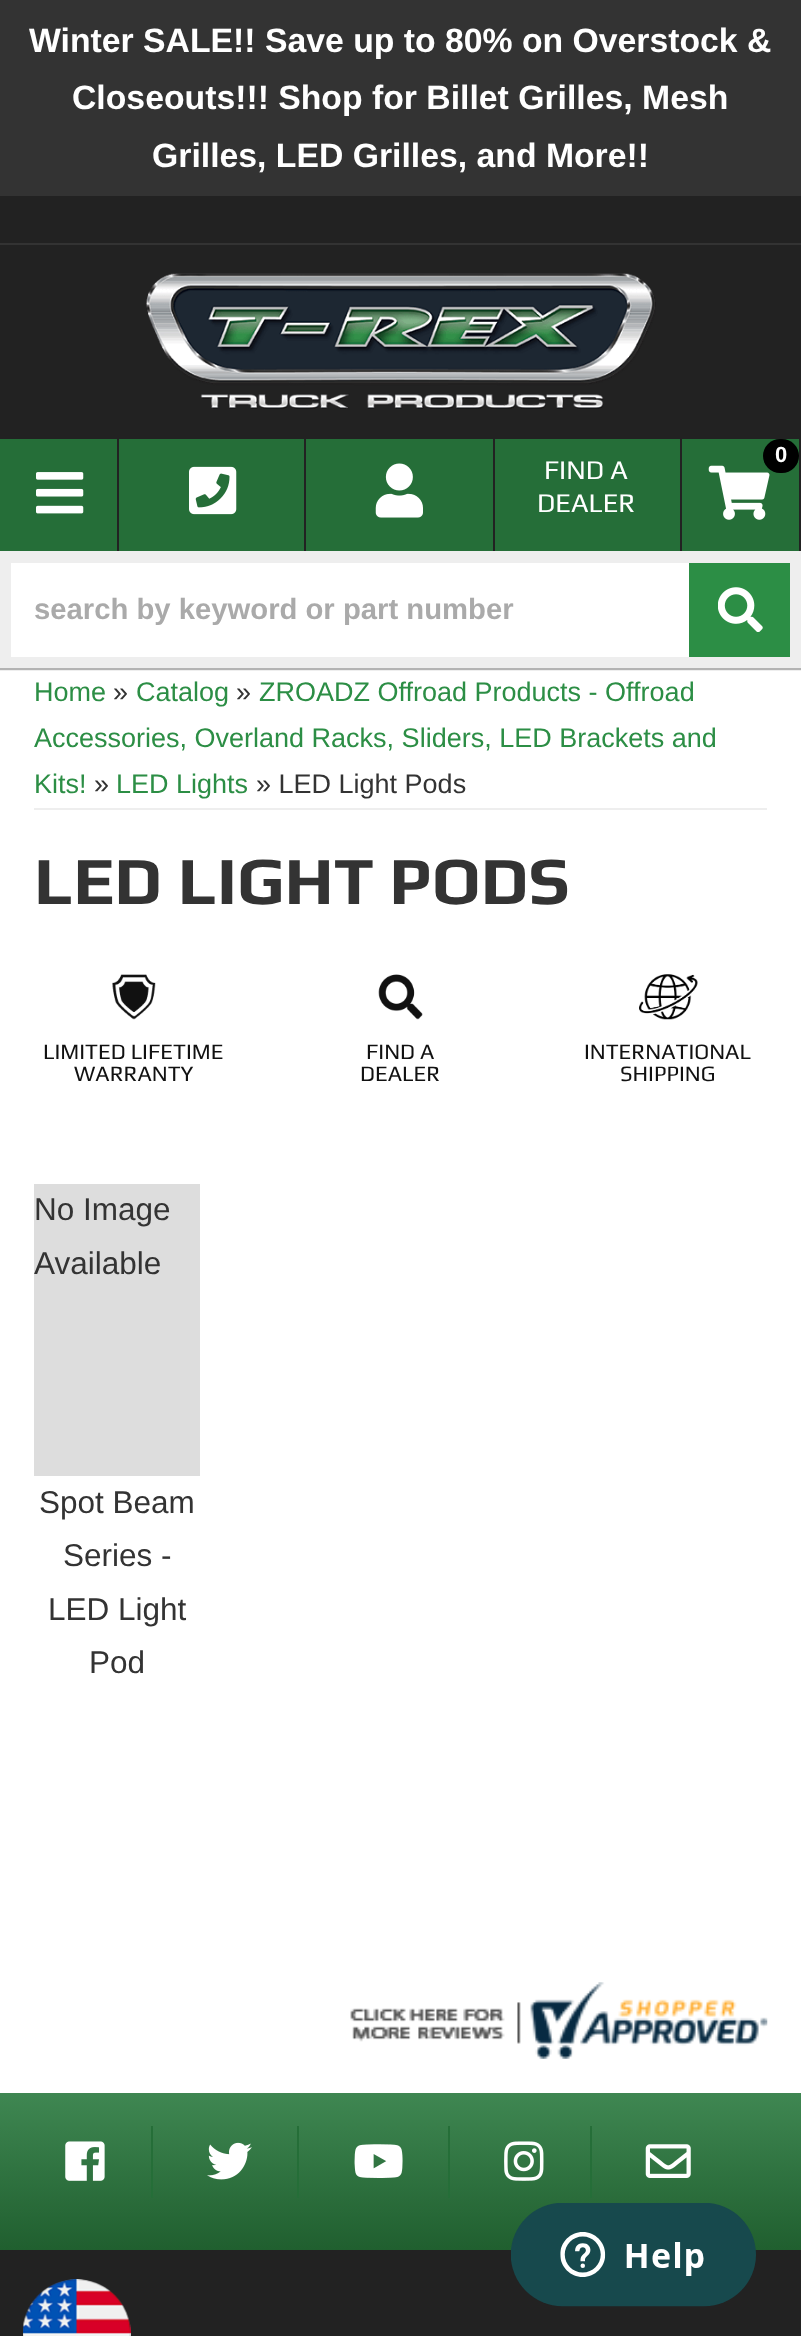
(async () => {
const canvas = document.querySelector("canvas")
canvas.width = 801
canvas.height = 2336
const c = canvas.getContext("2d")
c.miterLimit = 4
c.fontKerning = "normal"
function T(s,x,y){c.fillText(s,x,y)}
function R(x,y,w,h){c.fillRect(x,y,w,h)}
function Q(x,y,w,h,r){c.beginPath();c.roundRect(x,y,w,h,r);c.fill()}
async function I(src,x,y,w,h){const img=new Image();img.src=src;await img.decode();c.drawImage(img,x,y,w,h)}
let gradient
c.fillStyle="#fff"
R(0,0,801,2336)
c.fillStyle="#333"
R(0,0,801,196)
c.font="bold 33.75px Liberation Sans"
c.fillStyle="#fff"
T("Winter SALE!! Save up to 80% on Overstock &",29,52)
T("Closeouts!!! Shop for Billet Grilles, Mesh",72,109)
T("Grilles, LED Grilles, and More!!",152,167)
c.fillStyle="#222"
R(0,196,801,47)
c.fillStyle="#333"
R(0,243,801,2)
c.fillStyle="#222"
R(0,245,801,194)
await I("1.png",146,273,510,136)
c.fillStyle="#256e38"
R(0,439,117,112)
c.fillStyle="#222"
R(117,439,2,112)
await I("2.png",36,472,48,42)
c.fillStyle="#256e38"
R(682,439,117,112)
c.fillStyle="#222"
R(799,439,2,112)
await I("3.png",708,465,62,55)
c.fillStyle="#000"
Q(763,439,36,34,17)
c.font="bold 22px Liberation Sans"
c.fillStyle="#fff"
T("0",775,462)
c.fillStyle="#256e38"
R(119,439,561,112)
c.fillStyle="#222"
R(304,439,2,112)
await I("4.png",189,466,48,49)
R(493,439,2,112)
await I("5.png",375,463,48,55)
R(680,439,2,112)
c.font="27px Play"
c.fillStyle="#fff"
T("FIND A",544,479)
T("DEALER",537,512)
c.fillStyle="#eee"
R(0,551,801,120)
c.fillStyle="#b3b3b3"
R(0,668,801,2)
c.fillStyle="#fff"
R(11,563,678,94)
c.font="bold 29.25px Liberation Sans"
c.fillStyle="#aaa"
T("search by keyword or part number",34,619)
c.fillStyle="#2c8e45"
R(689,563,101,94)
await I("6.png",718,587,45,45)
c.fillStyle="#eee"
R(34,808,733,2)
c.font="27px Liberation Sans"
c.fillStyle="#2c8e45"
T("Home",34,701)
c.fillStyle="#333"
T("»",113,701)
c.fillStyle="#2c8e45"
T("Catalog",136,701)
c.fillStyle="#333"
T("»",236,701)
c.fillStyle="#2c8e45"
T("ZROADZ Offroad Products - Offroad",259,701)
T("Accessories, Overland Racks, Sliders, LED Brackets and",34,747)
T("Kits!",34,793)
c.fillStyle="#333"
T("»",94,793)
c.fillStyle="#2c8e45"
T("LED Lights",116,793)
c.fillStyle="#333"
T("» LED Light Pods",256,793)
c.font="bold 67.5px Play"
T("LED LIGHT PODS",34,904)
await I("7.png",112,974,44,46)
c.font="22px Play"
c.fillStyle="#111"
T("LIMITED LIFETIME",43,1059)
T("WARRANTY",74,1081)
await I("8.png",378,974,45,46)
T("FIND A",366,1059)
T("DEALER",360,1081)
await I("9.png",639,974,59,46)
T("INTERNATIONAL",584,1059)
T("SHIPPING",620,1081)
c.fillStyle="#ddd"
R(34,1184,166,292)
c.font="31.5px Liberation Sans"
c.fillStyle="#333"
T("No Image",34,1220)
T("Available",34,1274)
T("Spot Beam",39,1513)
T("Series -",63,1566)
T("LED Light",48,1620)
T("Pod",89,1673)
await I("10.png",350,1982,418,77)
gradient = c.createLinearGradient(401,2093,401,2250)
gradient.addColorStop(0,"#3f8752")
gradient.addColorStop(1,"#205f2f")
c.fillStyle = gradient
R(0,2093,801,157)
c.fillStyle="#256e38"
R(151,2126,2,72)
await I("11.png",65,2141,40,40)
R(297,2126,2,72)
await I("12.png",207,2142,45,38)
R(448,2126,2,72)
await I("13.png",354,2144,49,34)
R(590,2126,2,72)
await I("14.png",504,2141,40,40)
await I("15.png",645,2144,46,34)
c.fillStyle="#222"
R(0,2250,801,86)
await I("16.png",23,2279,108,57)
await I("17.png",511,2203,245,104)
})()
